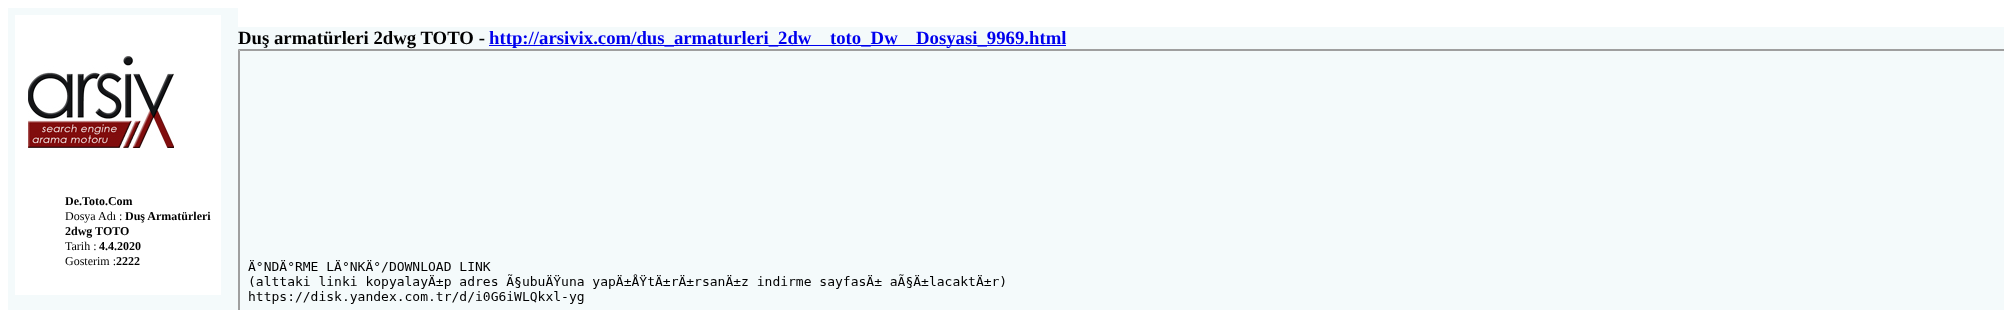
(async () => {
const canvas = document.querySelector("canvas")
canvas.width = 2004
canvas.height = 310
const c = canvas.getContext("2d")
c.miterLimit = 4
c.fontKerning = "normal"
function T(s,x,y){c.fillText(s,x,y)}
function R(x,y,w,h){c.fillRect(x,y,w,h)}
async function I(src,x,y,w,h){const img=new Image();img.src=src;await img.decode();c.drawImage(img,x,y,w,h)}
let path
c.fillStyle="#fff"
R(0,0,2004,310)
c.fillStyle="#f4fafb"
R(238,27,1766,283)
c.font="bold 18.75px Liberation Serif"
c.fillStyle="#000"
T("Duş armatürleri 2dwg TOTO -",238,44)
c.fillStyle="#00e"
R(489,45,577,1)
T("http://arsivix.com/dus_armaturleri_2dw",489,44)
T("toto_Dw",830,44)
T("Dosyasi_9969.html",916,44)
c.fillStyle="#9f9f9f"
path = new Path2D("M238 49h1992l-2 2h-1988z")
c.fill(path)
path = new Path2D("M238 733v-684l2 2v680z")
c.fill(path)
await I("1.png",248,260,757,44)
c.fillStyle="#f4fafb"
R(8,8,230,302)
c.fillStyle="#fff"
R(15,15,206,280)
await I("2.png",28,56,146,92)
c.font="bold 12px Liberation Serif"
c.fillStyle="#000"
T("De.Toto.Com",65,205)
c.font="12px Liberation Serif"
T("Dosya Adı :",65,220)
c.font="bold 12px Liberation Serif"
T("Duş Armatürleri",125,220)
T("2dwg TOTO",65,235)
c.font="12px Liberation Serif"
T("Tarih :",65,250)
c.font="bold 12px Liberation Serif"
T("4.4.2020",99,250)
c.font="12px Liberation Serif"
T("Gosterim :",65,265)
c.font="bold 12px Liberation Serif"
T("2222",116,265)
})()
